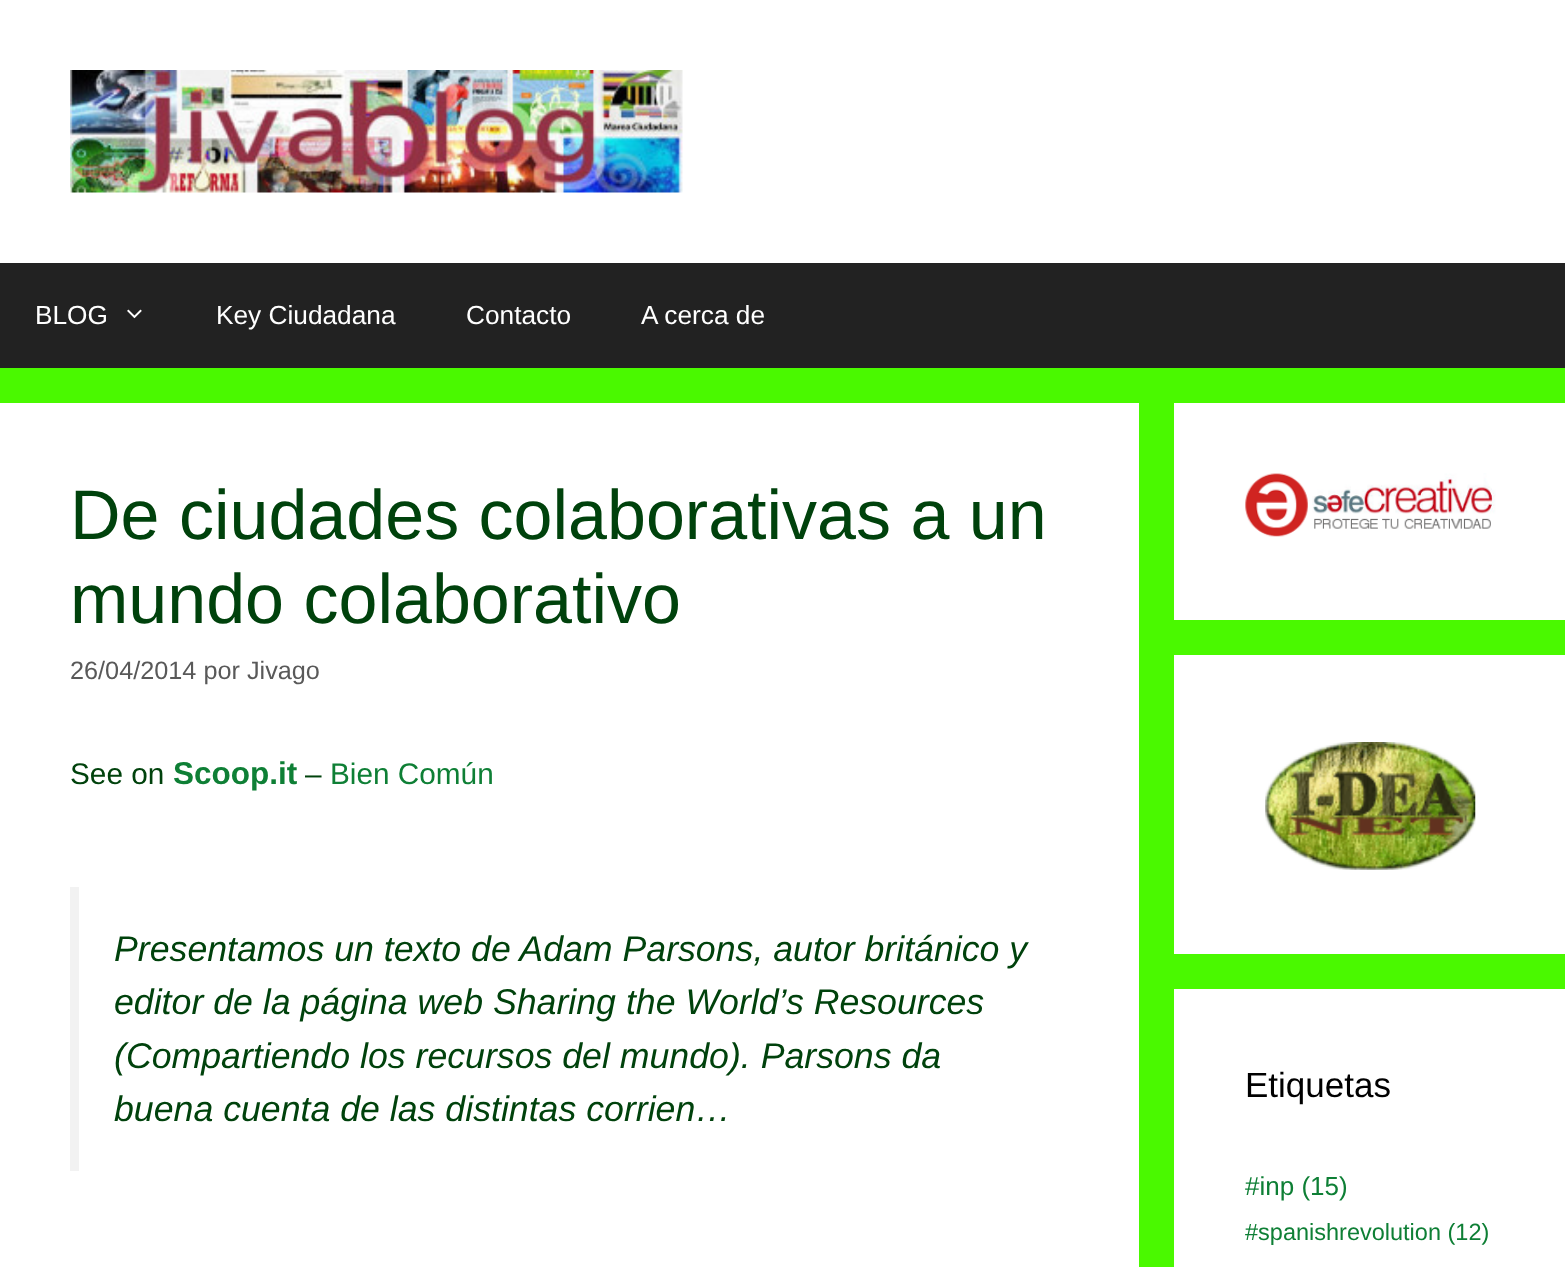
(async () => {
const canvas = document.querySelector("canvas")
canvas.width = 1565
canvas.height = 1267
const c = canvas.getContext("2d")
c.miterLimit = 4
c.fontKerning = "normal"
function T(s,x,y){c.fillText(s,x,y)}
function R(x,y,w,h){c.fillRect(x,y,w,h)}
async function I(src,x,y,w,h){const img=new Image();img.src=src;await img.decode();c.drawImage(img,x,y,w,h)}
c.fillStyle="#4af900"
R(0,0,1565,1267)
c.fillStyle="#fff"
R(0,0,1565,263)
await I("1.png",70,70,613,123)
c.fillStyle="#222"
R(0,263,1565,105)
c.font="26.25px Liberation Sans"
c.fillStyle="#fff"
T("BLOG",35,324)
await I("2.png",127,309,15,10)
T("Key Ciudadana",216,324)
T("Contacto",466,324)
T("A cerca de",641,324)
R(0,403,1139,864)
c.font="70px Liberation Sans"
c.fillStyle="#00420c"
T("De ciudades colaborativas a un",70,539)
T("mundo colaborativo",70,623)
c.font="25.25px Liberation Sans"
c.fillStyle="#595959"
T("26/04/2014 por Jivago",70,679)
c.font="29.75px Liberation Sans"
c.fillStyle="#00420c"
T("See on",70,784)
c.font="bold 31.5px Liberation Sans"
c.fillStyle="#0e7f35"
T("Scoop.it",173,784)
c.font="29.75px Liberation Sans"
c.fillStyle="#00420c"
T("–",305,784)
c.fillStyle="#0e7f35"
T("Bien Común",330,784)
c.fillStyle="#f2f2f2"
R(70,887,9,284)
c.font="italic 35.7px Liberation Sans"
c.fillStyle="#00420c"
T("Presentamos un texto de Adam Parsons, autor británico y",114,961)
T("editor de la página web Sharing the World’s Resources",114,1014)
T("(Compartiendo los recursos del mundo). Parsons da",114,1068)
T("buena cuenta de las distintas corrien…",114,1121)
c.fillStyle="#fff"
R(1174,403,391,217)
await I("3.png",1245,473,251,64)
R(1174,655,391,299)
await I("4.png",1265,742,211,128)
R(1174,989,391,278)
c.font="35px Liberation Sans"
c.fillStyle="#000"
T("Etiquetas",1245,1097)
c.font="26px Liberation Sans"
c.fillStyle="#0e7f35"
T("#inp (15)",1245,1195)
c.font="23.5px Liberation Sans"
T("#spanishrevolution (12)",1245,1240)
})()
